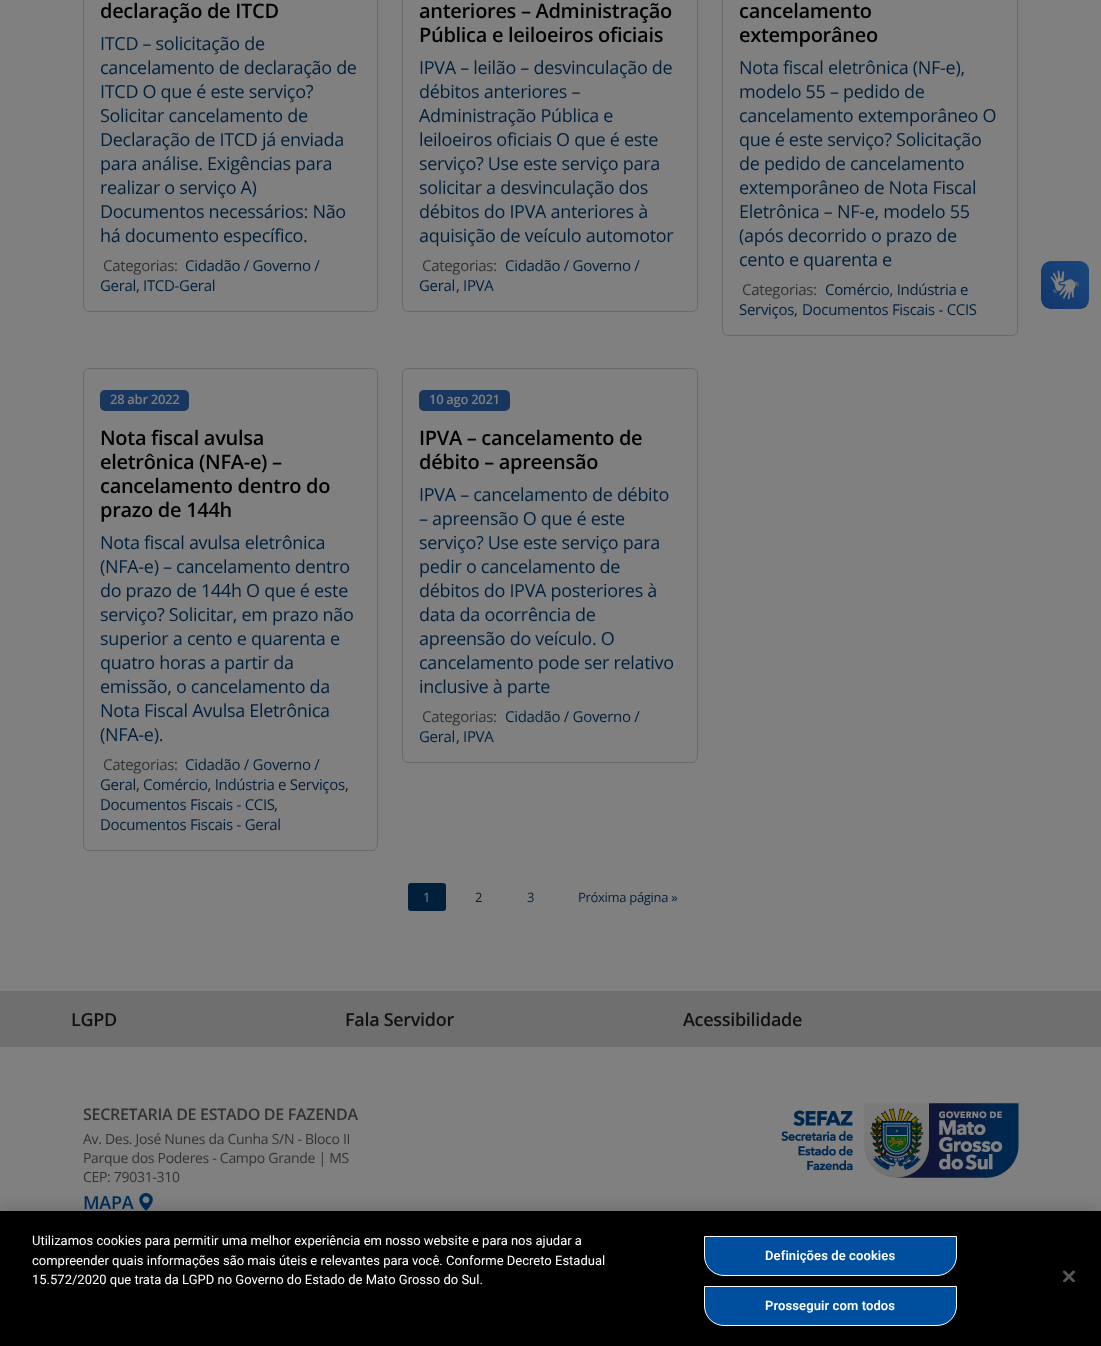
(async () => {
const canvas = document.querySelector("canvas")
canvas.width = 1101
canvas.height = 1346
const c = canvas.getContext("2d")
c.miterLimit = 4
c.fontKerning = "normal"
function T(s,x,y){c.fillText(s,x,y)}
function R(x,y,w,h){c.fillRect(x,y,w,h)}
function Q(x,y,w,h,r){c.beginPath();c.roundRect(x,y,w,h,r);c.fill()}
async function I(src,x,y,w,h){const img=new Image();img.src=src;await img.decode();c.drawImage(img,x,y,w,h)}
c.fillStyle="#808080"
R(0,0,1101,1346)
c.beginPath()
c.roundRect(83.5,-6.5,294,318,5.5)
c.strokeStyle="#696969"
c.stroke()
c.letterSpacing="-0.3px"
c.font="600 20px Open Sans"
c.fillStyle="#000"
T("declaração de ITCD",100,18)
c.font="18px Open Sans"
c.fillStyle="#001f3b"
T("ITCD – solicitação de",100,50)
T("cancelamento de declaração de",100,74)
T("ITCD O que é este serviço?",100,98)
T("Solicitar cancelamento de",100,122)
T("Declaração de ITCD já enviada",100,146)
T("para análise. Exigências para",100,170)
T("realizar o serviço A)",100,194)
T("Documentos necessários: Não",100,218)
T("há documento específico.",100,242)
c.font="15px Open Sans"
c.fillStyle="#323232"
T("Categorias:",103,271)
c.fillStyle="#001f3b"
T("Cidadão / Governo /",185,271)
T("Geral",100,291)
c.fillStyle="#121010"
T(",",136,291)
c.fillStyle="#001f3b"
T("ITCD-Geral",143,291)
c.beginPath()
c.roundRect(402.5,-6.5,295,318,5.5)
c.stroke()
c.font="600 20px Open Sans"
c.fillStyle="#000"
T("anteriores – Administração",419,18)
T("Pública e leiloeiros oficiais",419,42)
c.font="18px Open Sans"
c.fillStyle="#001f3b"
T("IPVA – leilão – desvinculação de",419,74)
T("débitos anteriores –",419,98)
T("Administração Pública e",419,122)
T("leiloeiros oficiais O que é este",419,146)
T("serviço? Use este serviço para",419,170)
T("solicitar a desvinculação dos",419,194)
T("débitos do IPVA anteriores à",419,218)
T("aquisição de veículo automotor",419,242)
c.font="15px Open Sans"
c.fillStyle="#323232"
T("Categorias:",422,271)
c.fillStyle="#001f3b"
T("Cidadão / Governo /",505,271)
T("Geral",419,291)
c.fillStyle="#121010"
T(",",456,291)
c.fillStyle="#001f3b"
T("IPVA",463,291)
c.beginPath()
c.roundRect(722.5,-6.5,295,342,5.5)
c.stroke()
c.font="600 20px Open Sans"
c.fillStyle="#000"
T("cancelamento",739,18)
T("extemporâneo",739,42)
c.font="18px Open Sans"
c.fillStyle="#001f3b"
T("Nota fiscal eletrônica (NF-e),",739,74)
T("modelo 55 – pedido de",739,98)
T("cancelamento extemporâneo O",739,122)
T("que é este serviço? Solicitação",739,146)
T("de pedido de cancelamento",739,170)
T("extemporâneo de Nota Fiscal",739,194)
T("Eletrônica – NF-e, modelo 55",739,218)
T("(após decorrido o prazo de",739,242)
T("cento e quarenta e",739,266)
c.font="15px Open Sans"
c.fillStyle="#323232"
T("Categorias:",742,295)
c.fillStyle="#001f3b"
T("Comércio, Indústria e",825,295)
T("Serviços",739,315)
c.fillStyle="#121010"
T(",",794,315)
c.fillStyle="#001f3b"
T("Documentos Fiscais - CCIS",802,315)
c.beginPath()
c.roundRect(83.5,368.5,294,482,5.5)
c.stroke()
c.fillStyle="#19365f"
Q(100,390,89,21,5)
c.font="600 13px Open Sans"
c.fillStyle="#808080"
T("28 abr 2022",110,404)
c.font="600 20px Open Sans"
c.fillStyle="#000"
T("Nota fiscal avulsa",100,445)
T("eletrônica (NFA-e) –",100,469)
T("cancelamento dentro do",100,493)
T("prazo de 144h",100,517)
c.font="18px Open Sans"
c.fillStyle="#001f3b"
T("Nota fiscal avulsa eletrônica",100,549)
T("(NFA-e) – cancelamento dentro",100,573)
T("do prazo de 144h O que é este",100,597)
T("serviço? Solicitar, em prazo não",100,621)
T("superior a cento e quarenta e",100,645)
T("quatro horas a partir da",100,669)
T("emissão, o cancelamento da",100,693)
T("Nota Fiscal Avulsa Eletrônica",100,717)
T("(NFA-e).",100,741)
c.font="15px Open Sans"
c.fillStyle="#323232"
T("Categorias:",103,770)
c.fillStyle="#001f3b"
T("Cidadão / Governo /",185,770)
T("Geral",100,790)
c.fillStyle="#121010"
T(",",136,790)
c.fillStyle="#001f3b"
T("Comércio, Indústria e Serviços",143,790)
c.fillStyle="#121010"
T(",",345,790)
c.fillStyle="#001f3b"
T("Documentos Fiscais - CCIS",100,810)
c.fillStyle="#121010"
T(",",274,810)
c.fillStyle="#001f3b"
T("Documentos Fiscais - Geral",100,830)
c.beginPath()
c.roundRect(402.5,368.5,295,394,5.5)
c.stroke()
c.fillStyle="#19365f"
Q(419,390,91,21,5)
c.font="600 13px Open Sans"
c.fillStyle="#808080"
T("10 ago 2021",429,404)
c.font="600 20px Open Sans"
c.fillStyle="#000"
T("IPVA – cancelamento de",419,445)
T("débito – apreensão",419,469)
c.font="18px Open Sans"
c.fillStyle="#001f3b"
T("IPVA – cancelamento de débito",419,501)
T("– apreensão O que é este",419,525)
T("serviço? Use este serviço para",419,549)
T("pedir o cancelamento de",419,573)
T("débitos do IPVA posteriores à",419,597)
T("data da ocorrência de",419,621)
T("apreensão do veículo. O",419,645)
T("cancelamento pode ser relativo",419,669)
T("inclusive à parte",419,693)
c.font="15px Open Sans"
c.fillStyle="#323232"
T("Categorias:",422,722)
c.fillStyle="#001f3b"
T("Cidadão / Governo /",505,722)
T("Geral",419,742)
c.fillStyle="#121010"
T(",",456,742)
c.fillStyle="#001f3b"
T("IPVA",463,742)
Q(408,883,38,28,3)
c.font="13px Open Sans"
c.fillStyle="#808080"
T("1",423,902)
c.fillStyle="#001f3b"
T("2",475,902)
T("3",527,902)
T("Próxima página »",578,902)
await I("1.png",1041,261,48,48)
await I("2.png",1041,261,48,48)
c.fillStyle="#6f6f6f"
R(0,991,1101,56)
c.font="600 18px Open Sans"
c.fillStyle="#121010"
T("LGPD",71,1026)
T("Fala Servidor",345,1026)
T("Acessibilidade",683,1026)
c.font="600 16px Open Sans"
c.fillStyle="#323232"
T("SECRETARIA DE ESTADO DE FAZENDA",83,1120)
c.font="14px Open Sans"
T("Av. Des. José Nunes da Cunha S/N - Bloco II",83,1144)
T("Parque dos Poderes - Campo Grande | MS",83,1163)
T("CEP: 79031-310",83,1182)
c.font="600 18px Open Sans"
c.fillStyle="#002c58"
T("MAPA",83,1209)
await I("3.png",139,1193,14,18)
await I("4.png",781,1103,238,75)
c.fillStyle="#00000033"
c.filter="blur(9px)"
c.beginPath()
c.rect(0,1211,1101,135)
c.fill()
c.filter="none"
c.fillStyle="#000"
R(0,1211,1101,135)
c.letterSpacing="0px"
c.font="13px Roboto"
c.fillStyle="#fff"
T("Utilizamos cookies para permitir uma melhor experiência em nosso website e para nos ajudar a",32,1245)
T("compreender quais informações são mais úteis e relevantes para você. Conforme Decreto Estadual",32,1265)
T("15.572/2020 que trata da LGPD no Governo do Estado de Mato Grosso do Sul.",32,1284)
c.fillStyle="#004f9f"
c.beginPath()
c.roundRect(704.5,1236.5,252,39,[0,0,19.5,19.5])
c.fill()
c.strokeStyle="#fff"
c.stroke()
c.letterSpacing="0.1px"
c.font="600 13px Roboto"
c.fillStyle="#fff"
T("Definições de cookies",765,1260)
c.fillStyle="#004f9f"
c.beginPath()
c.roundRect(704.5,1286.5,252,39,[0,0,19.5,19.5])
c.fill()
c.stroke()
c.fillStyle="#fff"
T("Prosseguir com todos",765,1310)
await I("5.png",1063,1270,12,12)
})()
